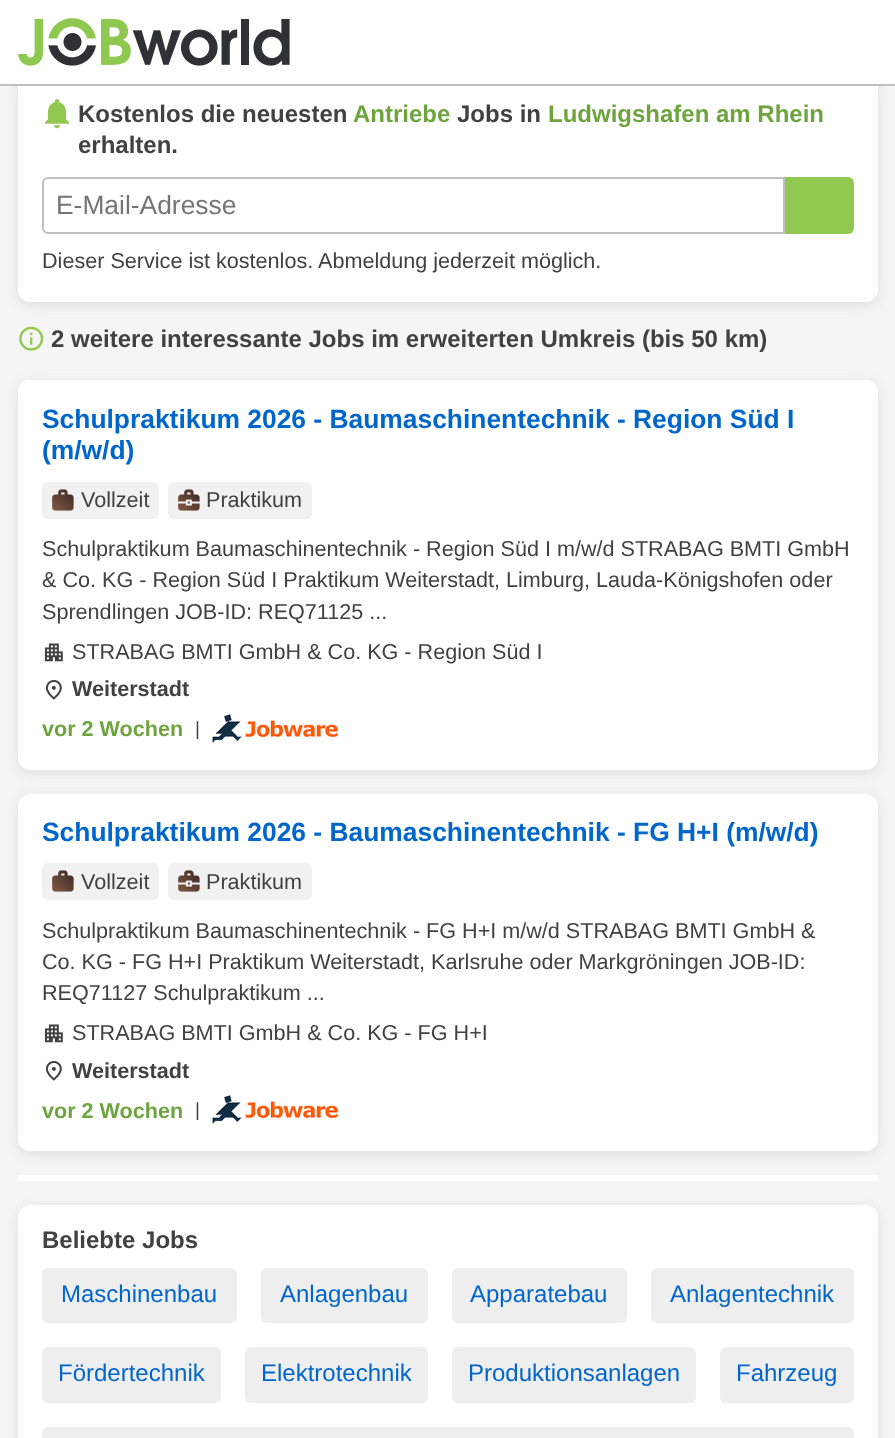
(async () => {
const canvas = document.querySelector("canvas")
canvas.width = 895
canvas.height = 1438
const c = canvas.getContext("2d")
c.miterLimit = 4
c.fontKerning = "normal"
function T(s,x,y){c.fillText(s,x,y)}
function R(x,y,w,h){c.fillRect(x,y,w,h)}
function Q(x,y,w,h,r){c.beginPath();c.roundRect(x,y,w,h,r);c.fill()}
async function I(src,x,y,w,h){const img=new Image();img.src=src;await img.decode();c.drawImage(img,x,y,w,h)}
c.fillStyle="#f5f5f5"
R(0,0,895,1438)
c.fillStyle="#d7d7d7cc"
c.filter="blur(6px)"
c.beginPath()
c.roundRect(18,78,860,227,12)
c.fill()
c.filter="none"
c.fillStyle="#fff"
Q(18,75,860,227,12)
R(0,0,895,84)
c.fillStyle="#bfbfbf"
R(0,84,895,2)
await I("1.png",18,18,272,48)
await I("2.png",45,99,24,30)
c.font="bold 24px Liberation Sans"
c.fillStyle="#414141"
T("Kostenlos die neuesten",78,122)
c.fillStyle="#6da43e"
T("Antriebe",353,122)
c.fillStyle="#414141"
T("Jobs in",457,122)
c.fillStyle="#6da43e"
T("Ludwigshafen am Rhein",548,122)
c.fillStyle="#414141"
T("erhalten.",78,153)
c.beginPath()
c.roundRect(43,178,741,55,[5,0,0,5])
c.strokeStyle="#bfbfbf"
c.lineWidth=2
c.stroke()
c.font="26.4px Liberation Sans"
c.fillStyle="#757575"
T("E-Mail-Adresse",56,214)
c.fillStyle="#91c850"
c.beginPath()
c.roundRect(785,177,69,57,[0,6,6,0])
c.fill()
c.font="21.6px Liberation Sans"
c.fillStyle="#414141"
T("Dieser Service ist kostenlos. Abmeldung jederzeit möglich.",42,268)
await I("3.png",19,326,25,25)
c.font="bold 24px Liberation Sans"
T("2 weitere interessante Jobs im erweiterten Umkreis (bis 50 km)",51,347)
c.fillStyle="#d7d7d7cc"
c.filter="blur(6px)"
c.beginPath()
c.roundRect(18,383,860,390,12)
c.fill()
c.filter="none"
c.fillStyle="#fff"
Q(18,380,860,390,12)
c.font="bold 26.4px Liberation Sans"
c.fillStyle="#06c"
T("Schulpraktikum 2026 - Baumaschinentechnik - Region Süd I",42,428)
T("(m/w/d)",42,459)
c.fillStyle="#f1f1f1"
Q(42,482,117,37,6)
await I("4.png",52,489,22,22)
c.font="21.6px Liberation Sans"
c.fillStyle="#414141"
T("Vollzeit",81,507)
c.fillStyle="#f1f1f1"
Q(168,482,144,37,6)
await I("5.png",178,489,22,22)
c.fillStyle="#414141"
T("Praktikum",206,507)
T("Schulpraktikum Baumaschinentechnik - Region Süd I m/w/d STRABAG BMTI GmbH",42,556)
T("& Co. KG - Region Süd I Praktikum Weiterstadt, Limburg, Lauda-Königshofen oder",42,587)
T("Sprendlingen JOB-ID: REQ71125 ...",42,619)
await I("6.png",44,643,19,19)
T("STRABAG BMTI GmbH & Co. KG - Region Süd I",72,659)
await I("7.png",46,680,16,20)
c.font="bold 21.6px Liberation Sans"
T("Weiterstadt",72,696)
c.fillStyle="#6da43e"
T("vor 2 Wochen",42,736)
c.font="19px Liberation Sans"
c.fillStyle="#414141"
T("|",195,735)
await I("8.png",212,714,127,29)
c.fillStyle="#d7d7d7cc"
c.filter="blur(6px)"
c.beginPath()
c.roundRect(18,797,860,357,12)
c.fill()
c.filter="none"
c.fillStyle="#fff"
Q(18,794,860,357,12)
c.font="bold 26.4px Liberation Sans"
c.fillStyle="#06c"
T("Schulpraktikum 2026 - Baumaschinentechnik - FG H+I (m/w/d)",42,841)
c.fillStyle="#f1f1f1"
Q(42,863,117,37,6)
await I("4.png",52,870,22,22)
c.font="21.6px Liberation Sans"
c.fillStyle="#414141"
T("Vollzeit",81,889)
c.fillStyle="#f1f1f1"
Q(168,863,144,37,6)
await I("5.png",178,870,22,22)
c.fillStyle="#414141"
T("Praktikum",206,889)
T("Schulpraktikum Baumaschinentechnik - FG H+I m/w/d STRABAG BMTI GmbH &",42,938)
T("Co. KG - FG H+I Praktikum Weiterstadt, Karlsruhe oder Markgröningen JOB-ID:",42,969)
T("REQ71127 Schulpraktikum ...",42,1000)
await I("6.png",44,1024,19,19)
T("STRABAG BMTI GmbH & Co. KG - FG H+I",72,1040)
await I("7.png",46,1061,16,20)
c.font="bold 21.6px Liberation Sans"
T("Weiterstadt",72,1078)
c.fillStyle="#6da43e"
T("vor 2 Wochen",42,1118)
c.font="19px Liberation Sans"
c.fillStyle="#414141"
T("|",195,1116)
await I("8.png",212,1095,127,29)
c.fillStyle="#fff"
Q(18,1175,860,6,3)
c.fillStyle="#d7d7d7cc"
c.filter="blur(6px)"
c.beginPath()
c.roundRect(18,1208,860,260,12)
c.fill()
c.filter="none"
c.fillStyle="#fff"
Q(18,1205,860,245,12)
c.font="bold 24px Liberation Sans"
c.fillStyle="#414141"
T("Beliebte Jobs",42,1248)
c.fillStyle="#eee"
Q(42,1268,195,55,6)
c.font="24px Liberation Sans"
c.fillStyle="#06c"
T("Maschinenbau",61,1302)
c.fillStyle="#eee"
Q(261,1268,167,55,6)
c.fillStyle="#06c"
T("Anlagenbau",280,1302)
c.fillStyle="#eee"
Q(452,1268,175,55,6)
c.fillStyle="#06c"
T("Apparatebau",470,1302)
c.fillStyle="#eee"
Q(651,1268,203,55,6)
c.fillStyle="#06c"
T("Anlagentechnik",670,1302)
c.fillStyle="#eee"
Q(42,1347,179,56,6)
c.fillStyle="#06c"
T("Fördertechnik",58,1381)
c.fillStyle="#eee"
Q(245,1347,183,56,6)
c.fillStyle="#06c"
T("Elektrotechnik",261,1381)
c.fillStyle="#eee"
Q(452,1347,244,56,6)
c.fillStyle="#06c"
T("Produktionsanlagen",468,1381)
c.fillStyle="#eee"
Q(720,1347,134,56,6)
c.fillStyle="#06c"
T("Fahrzeug",736,1381)
c.fillStyle="#eee"
Q(42,1427,812,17,6)
})()
